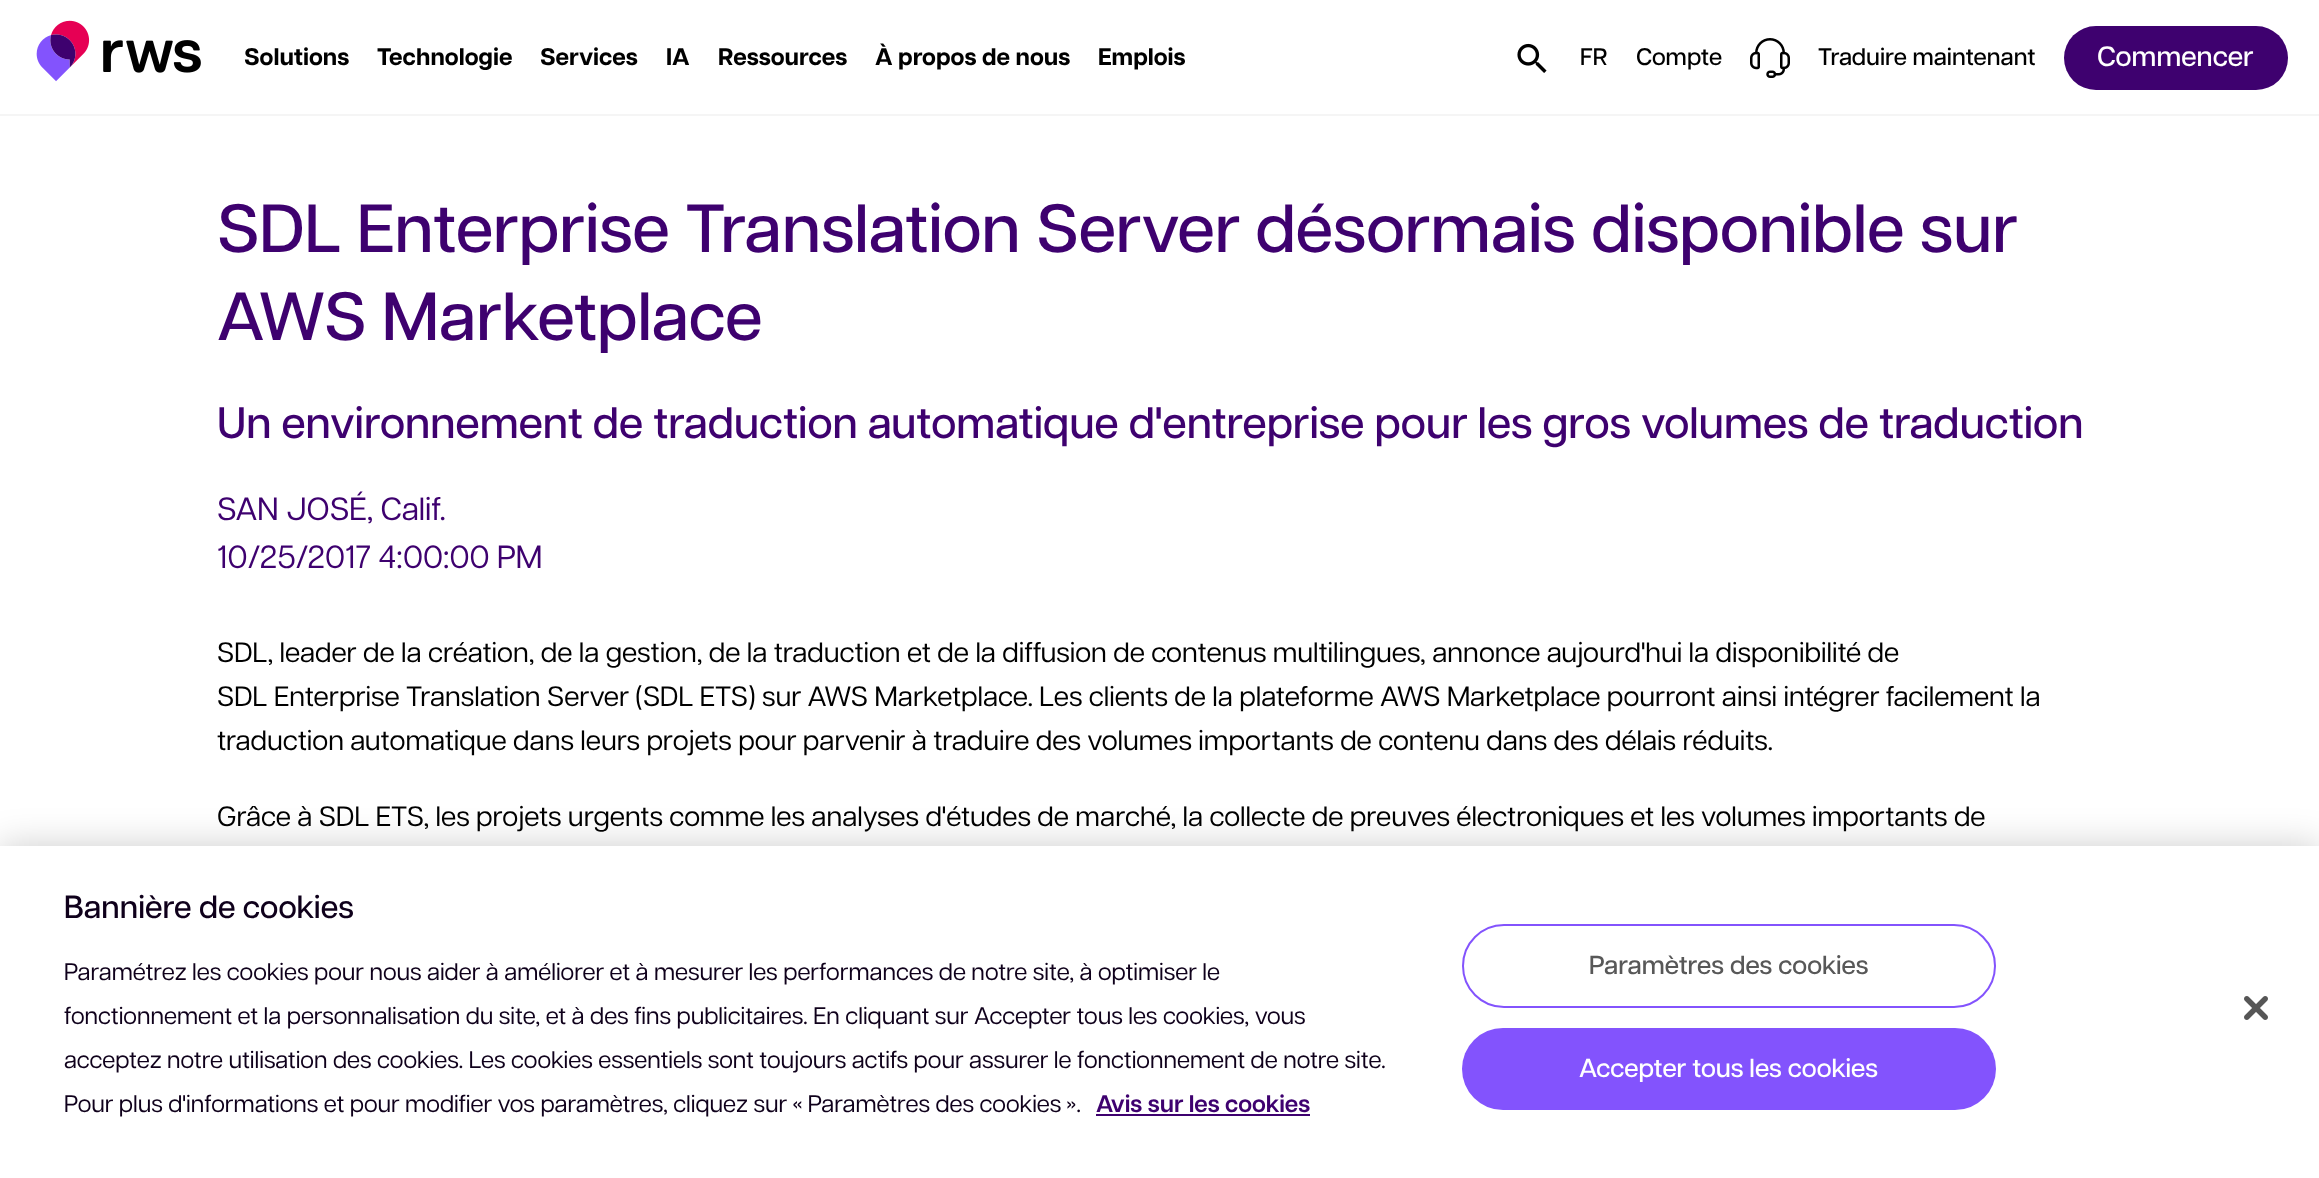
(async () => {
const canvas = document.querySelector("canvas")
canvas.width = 2319
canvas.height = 1178
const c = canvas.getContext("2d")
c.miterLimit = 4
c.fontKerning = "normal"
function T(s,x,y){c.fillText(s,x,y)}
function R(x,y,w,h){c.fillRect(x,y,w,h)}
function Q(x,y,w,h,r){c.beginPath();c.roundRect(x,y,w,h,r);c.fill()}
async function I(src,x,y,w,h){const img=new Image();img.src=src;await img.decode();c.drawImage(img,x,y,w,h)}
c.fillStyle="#fff"
R(0,0,2319,1178)
c.fillStyle="#f5f5f5"
R(0,114,2319,2)
await I("1.png",36,20,165,62)
c.font="bold 24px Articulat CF"
c.fillStyle="#000"
T("Solutions",244,65)
T("Technologie",377,65)
T("Services",540,65)
T("IA",666,65)
T("Ressources",718,65)
T("À propos de nous",875,65)
T("Emplois",1098,65)
await I("2.png",1517,43,30,30)
c.font="500 24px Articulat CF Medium"
T("FR",1580,65)
T("Compte",1636,65)
await I("3.png",1750,38,40,40)
T("Traduire maintenant",1818,65)
c.fillStyle="#3e016f"
Q(2064,26,224,64,32)
c.font="500 28px Articulat CF Medium"
c.fillStyle="#fff"
T("Commencer",2097,66)
c.font="500 68px Articulat CF Medium"
c.fillStyle="#3e016f"
T("SDL Enterprise Translation Server désormais disponible sur",217,252)
T("AWS Marketplace",217,340)
c.font="500 44px Articulat CF Medium"
T("Un environnement de traduction automatique d'entreprise pour les gros volumes de traduction",217,438)
c.font="32px Articulat CF"
T("SAN JOSÉ, Calif.",217,520)
T("10/25/2017 4:00:00 PM",217,568)
c.font="28px Articulat CF"
c.fillStyle="#000"
T("SDL, leader de la création, de la gestion, de la traduction et de la diffusion de contenus multilingues, annonce aujourd'hui la disponibilité de",217,662)
T("SDL Enterprise Translation Server (SDL ETS) sur AWS Marketplace. Les clients de la plateforme AWS Marketplace pourront ainsi intégrer facilement la",217,706)
T("traduction automatique dans leurs projets pour parvenir à traduire des volumes importants de contenu dans des délais réduits.",217,750)
T("Grâce à SDL ETS, les projets urgents comme les analyses d'études de marché, la collecte de preuves électroniques et les volumes importants de",217,826)
c.fillStyle="#00000033"
c.filter="blur(18px)"
c.beginPath()
c.rect(0,846,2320,332)
c.fill()
c.filter="none"
c.fillStyle="#fff"
R(0,846,2319,332)
c.font="500 32px Articulat CF Medium"
c.fillStyle="#0f001b"
T("Bannière de cookies",64,918)
c.font="24px Articulat CF"
T("Paramétrez les cookies pour nous aider à améliorer et à mesurer les performances de notre site, à optimiser le",64,980)
T("fonctionnement et la personnalisation du site, et à des fins publicitaires. En cliquant sur Accepter tous les cookies, vous",64,1024)
T("acceptez notre utilisation des cookies. Les cookies essentiels sont toujours actifs pour assurer le fonctionnement de notre site.",64,1068)
T("Pour plus d'informations et pour modifier vos paramètres, cliquez sur « Paramètres des cookies ».",64,1112)
c.font="600 24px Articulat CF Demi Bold"
c.fillStyle="#3e016f"
T("Avis sur les cookies",1096,1112)
R(1096,1114,214,2)
c.beginPath()
c.roundRect(1463,925,532,82,41)
c.strokeStyle="#8353fd"
c.lineWidth=2
c.stroke()
c.font="500 26px Articulat CF Medium"
c.fillStyle="#585858"
T("Paramètres des cookies",1589,974)
c.fillStyle="#8353fd"
Q(1462,1028,534,82,41)
c.fillStyle="#fff"
T("Accepter tous les cookies",1579,1077)
await I("4.png",2244,996,24,24)
})()
